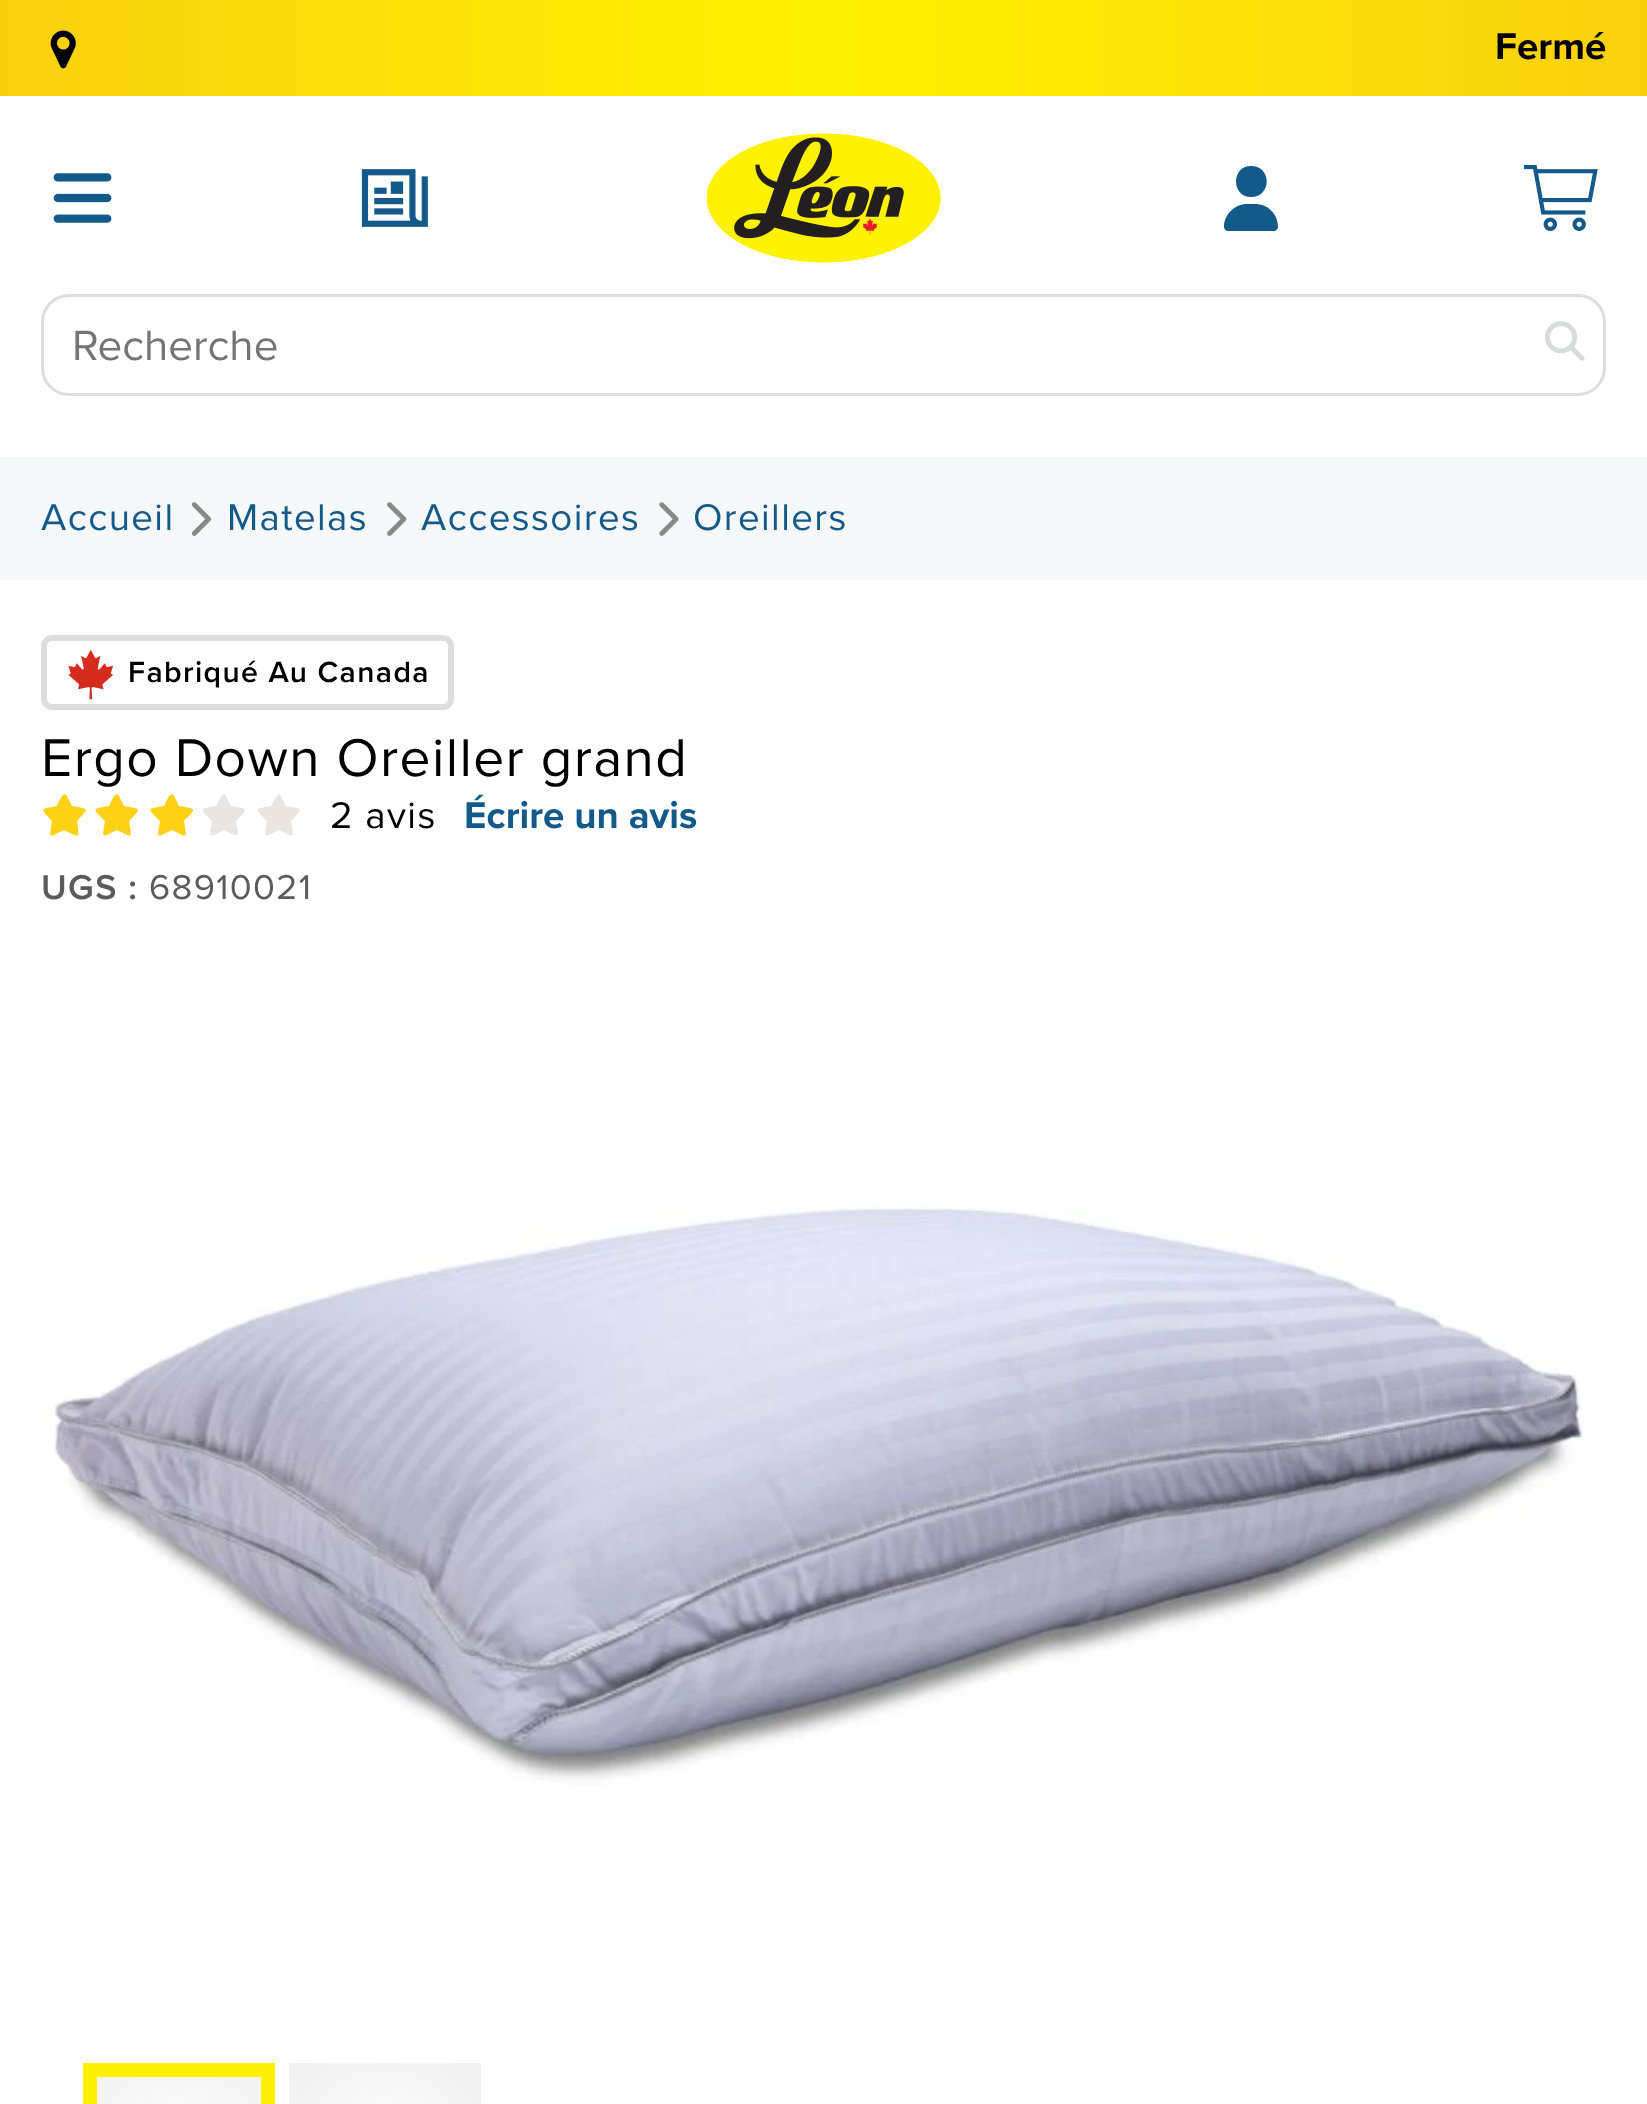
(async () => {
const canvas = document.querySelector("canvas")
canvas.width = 1647
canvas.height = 2104
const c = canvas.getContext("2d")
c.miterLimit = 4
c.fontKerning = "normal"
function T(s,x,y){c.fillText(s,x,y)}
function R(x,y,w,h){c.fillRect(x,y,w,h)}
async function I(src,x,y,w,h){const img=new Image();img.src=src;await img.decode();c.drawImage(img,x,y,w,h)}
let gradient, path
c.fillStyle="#fff"
R(0,0,1647,2104)
gradient = c.createLinearGradient(0,48,1647,48)
gradient.addColorStop(0,"#f9d010")
gradient.addColorStop(.5,"#fff200")
gradient.addColorStop(1,"#f9d010")
c.fillStyle = gradient
R(0,0,1647,96)
await I("1.png",50,30,26,39)
c.font="bold 38.5px Proxima Nova"
c.fillStyle="#000"
T("Fermé",1495,59)
await I("2.png",53,173,59,50)
await I("3.png",361,169,67,58)
await I("4.png",707,133,234,130)
c.fillStyle="#135a8a"
path = new Path2D("M1251 197c21 0 21-31 0-31c-20 0-20 31 0 31zm-4 7c-12 0-23 10-23 23c0 2 2 4 4 4h46c2 0 4-2 4-4c0-13-10-23-23-23z")
c.fill(path)
await I("5.png",1524,165,74,66)
c.beginPath()
c.roundRect(42.5,295.5,1562,99,26.5)
c.strokeStyle="#ddd"
c.lineWidth=3
c.stroke()
c.font="44px Proxima Nova"
c.fillStyle="#757575"
T("Recherche",72,360)
await I("6.png",1545,321,40,40)
c.fillStyle="#f6f7f8"
R(0,457,1647,123)
c.letterSpacing="1.4px"
c.font="38.5px Proxima Nova"
c.fillStyle="#135a8a"
T("Accueil",41,530)
await I("7.png",191,502,20,34)
T("Matelas",227,530)
await I("8.png",387,502,20,34)
T("Accessoires",421,530)
await I("9.png",659,502,20,34)
T("Oreillers",693,530)
c.beginPath()
c.roundRect(44,638,407,69,8)
c.lineWidth=6
c.stroke()
await I("10.png",68,649,46,51)
c.font="600 30.25px Proxima Nova"
c.fillStyle="#000"
T("Fabriqué Au Canada",128,682)
c.font="55px Proxima Nova"
T("Ergo Down Oreiller grand",41,776)
c.fillStyle="#fdd216"
path = new Path2D("M67 796c-4-7-10 10-10 10c-18 3-17 2-5 15c-3 18-4 17 12 9c16 8 16 9 13-9c12-13 13-12-5-15z")
c.fill(path)
path = new Path2D("M119 796c-4-7-9 10-10 10c-18 3-17 2-4 15c-3 18-4 17 12 9c16 8 15 9 12-9c13-13 13-12-5-15z")
c.fill(path)
path = new Path2D("M174 796c-4-7-9 10-10 10c-18 3-17 2-4 15c-3 18-4 17 12 9c16 8 15 9 12-9c13-13 13-12-5-15z")
c.fill(path)
c.fillStyle="#eae5e1"
path = new Path2D("M226 796c-3-7-9 10-10 10c-17 3-17 2-4 15c-3 18-4 17 12 9c16 8 15 9 12-9c13-13 13-12-5-15z")
c.fill(path)
path = new Path2D("M281 796c-3-7-9 10-10 10c-17 3-17 2-4 15c-3 18-4 17 12 9c16 8 15 9 12-9c13-13 13-12-5-15z")
c.fill(path)
c.font="38.5px Proxima Nova"
c.fillStyle="#000"
T("2 avis",330,828)
c.letterSpacing="0px"
c.font="bold 38.5px Proxima Nova"
c.fillStyle="#135a8a"
T("Écrire un avis",464,828)
c.letterSpacing="1.4px"
c.font="600 35.75px Proxima Nova"
c.fillStyle="#5b5b5b"
T("UGS :",41,899)
c.font="35.75px Proxima Nova"
T("68910021",149,899)
await I("11.png",41,1783,1549,3)
await I("12.png",41,1203,1549,580)
gradient = c.createRadialGradient(179,2159,0,179,2159,136)
gradient.addColorStop(0,"#fff")
gradient.addColorStop(1,"#f0f0f0")
c.fillStyle = gradient
R(97,2077,164,27)
c.strokeStyle="#fcf104"
c.lineWidth=14
c.strokeRect(90,2070,178,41)
gradient = c.createRadialGradient(385,2159,0,385,2159,136)
gradient.addColorStop(0,"#fff")
gradient.addColorStop(1,"#f0f0f0")
c.fillStyle = gradient
R(289,2063,192,41)
})()
